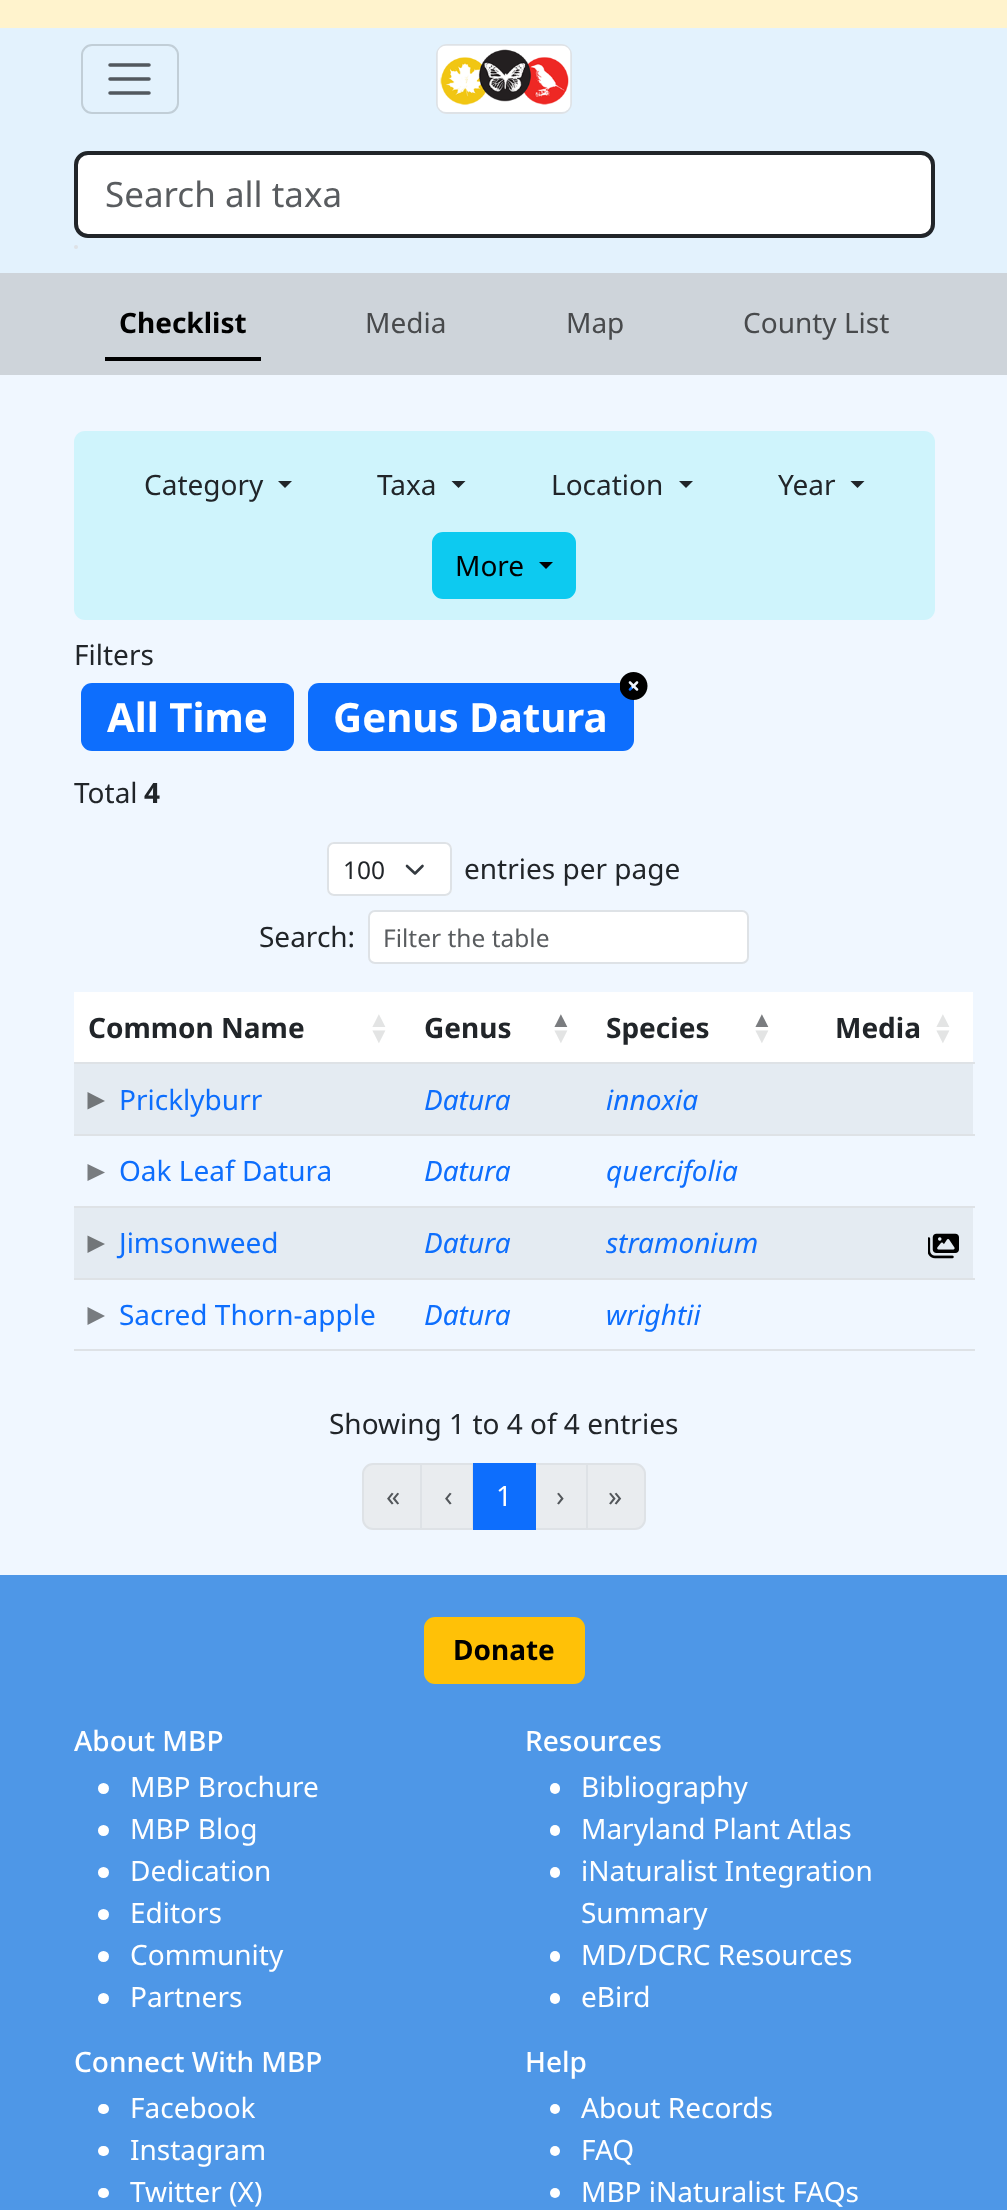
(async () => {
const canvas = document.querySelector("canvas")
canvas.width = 1007
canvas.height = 2210
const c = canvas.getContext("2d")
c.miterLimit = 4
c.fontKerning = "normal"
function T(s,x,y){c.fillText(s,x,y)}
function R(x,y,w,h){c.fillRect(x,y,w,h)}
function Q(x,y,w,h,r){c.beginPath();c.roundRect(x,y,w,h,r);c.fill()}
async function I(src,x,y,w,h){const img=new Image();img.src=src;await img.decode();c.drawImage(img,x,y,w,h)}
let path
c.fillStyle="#fff3cd"
R(0,0,1007,2210)
c.fillStyle="#e3f2fd"
R(0,28,1007,245)
c.beginPath()
c.roundRect(82,45,96,68,10)
c.strokeStyle="#c1ced7"
c.lineWidth=2
c.stroke()
path = new Path2D("M110 65h39m-39 14h39m-39 14h39")
c.strokeStyle="#52585e"
c.lineWidth=3.5
c.lineCap="round"
c.stroke(path)
c.beginPath()
c.roundRect(437,45,134,68,10)
c.strokeStyle="#dee2e6"
c.lineWidth=2
c.stroke()
await I("1.png",437,45,134,67)
c.fillStyle="#fff"
c.beginPath()
c.roundRect(76,153,857,83,12)
c.fill()
c.strokeStyle="#212529"
c.lineWidth=4
c.stroke()
c.font="35px Noto Sans"
c.fillStyle="#595c5f"
T("Search all taxa",105,207)
c.fillStyle="#dee2e6"
c.beginPath()
c.arc(76,247,2,0,7)
c.fill()
c.fillStyle="#ced4da"
R(0,273,1007,102)
c.fillStyle="#000"
R(105,357,156,4)
c.font="bold 28px Noto Sans"
T("Checklist",119,333)
c.font="28px Noto Sans"
c.fillStyle="#484a4c"
T("Media",365,333)
T("Map",566,333)
T("County List",743,333)
c.fillStyle="#f0f7ff"
R(0,375,1007,1200)
c.fillStyle="#cff4fc"
Q(74,431,861,189,11)
c.fillStyle="#212529"
T("Category",144,495)
path = new Path2D("M278 481h14l-7 7z")
c.fill(path)
T("Taxa",377,495)
path = new Path2D("M451.5 481h14l-7 7z")
c.fill(path)
T("Location",551,495)
path = new Path2D("M679 481h14l-7 7z")
c.fill(path)
T("Year",778,495)
path = new Path2D("M850.5 481h14l-7 7z")
c.fill(path)
c.fillStyle="#0dcaf0"
c.beginPath()
c.roundRect(433,533,142,65,10)
c.fill()
c.strokeStyle="#0dcaf0"
c.lineWidth=2
c.stroke()
c.fillStyle="#000"
T("More",455,576)
path = new Path2D("M539 562h14l-7 7z")
c.fill(path)
c.fillStyle="#212529"
T("Filters",74,665)
c.fillStyle="#0d6efd"
Q(81,683,213,68,11)
c.font="bold 40.25px Noto Sans"
c.fillStyle="#fff"
T("All Time",107,732)
c.fillStyle="#0d6efd"
Q(308,683,326,68,11)
await I("2.png",620,672,28,28)
c.fillStyle="#fff"
T("Genus Datura",333,732)
c.font="28px Noto Sans"
c.fillStyle="#212529"
T("Total",74,803)
c.font="bold 28px Noto Sans"
T("4",144,803)
c.fillStyle="#fff"
Q(327,842,125,54,7)
path = new Path2D("M407 866l8 7.5l7.5-7.5")
c.strokeStyle="#343a40"
c.lineWidth=2.6
c.lineJoin="round"
c.stroke(path)
c.beginPath()
c.roundRect(328,843,123,52,6)
c.strokeStyle="#dee2e6"
c.lineWidth=2
c.lineJoin="miter"
c.stroke()
c.font="24.5px Noto Sans"
c.fillStyle="#212529"
T("100",343,879)
c.font="28px Noto Sans"
T("entries per page",464,879)
T("Search:",259,947)
c.fillStyle="#fff"
c.beginPath()
c.roundRect(369,911,379,52,6)
c.fill()
c.stroke()
c.font="24.5px Noto Sans"
c.fillStyle="#595c5f"
T("Filter the table",383,947)
c.fillStyle="#fff"
R(74,992,899,70)
c.font="bold 28px Noto Sans"
c.fillStyle="#212529"
T("Common Name",88,1038)
c.font="bold 22px Liberation Sans"
c.fillStyle="#e3e4e4"
T("▲",368,1027)
T("▼",368,1043)
c.font="bold 28px Noto Sans"
c.fillStyle="#212529"
T("Genus",424,1038)
c.font="bold 22px Liberation Sans"
c.fillStyle="#7a7c7f"
T("▲",550,1027)
c.fillStyle="#e3e4e4"
T("▼",550,1043)
c.font="bold 28px Noto Sans"
c.fillStyle="#212529"
T("Species",606,1038)
c.font="bold 22px Liberation Sans"
c.fillStyle="#7a7c7f"
T("▲",751,1027)
c.fillStyle="#e3e4e4"
T("▼",751,1043)
c.fillStyle="#dee2e6"
R(74,1062,901,2)
c.font="bold 28px Noto Sans"
c.fillStyle="#212529"
T("Media",835,1038)
c.font="bold 22px Liberation Sans"
c.fillStyle="#e3e4e4"
T("▲",932,1027)
T("▼",932,1043)
c.fillStyle="#e4ebf2"
R(74,1064,899,70)
c.fillStyle="#727679"
path = new Path2D("M87.5 1109.5v-17.5l17.5 9z")
c.fill(path)
c.font="28px Noto Sans"
c.fillStyle="#0d6efd"
T("Pricklyburr",119,1110)
c.font="italic 28px Noto Sans"
T("Datura",424,1110)
T("innoxia",606,1110)
c.fillStyle="#dee2e6"
R(74,1134,901,2)
c.fillStyle="#787c80"
path = new Path2D("M87.5 1181v-17l17.5 8.5z")
c.fill(path)
c.font="28px Noto Sans"
c.fillStyle="#0d6efd"
T("Oak Leaf Datura",119,1181)
c.font="italic 28px Noto Sans"
T("Datura",424,1181)
T("quercifolia",606,1181)
c.fillStyle="#dee2e6"
R(74,1206,901,2)
c.fillStyle="#e4ebf2"
R(74,1208,899,70)
c.fillStyle="#727679"
path = new Path2D("M87.5 1253v-17.5l17.5 8.5z")
c.fill(path)
c.font="28px Noto Sans"
c.fillStyle="#0d6efd"
T("Jimsonweed",119,1253)
c.font="italic 28px Noto Sans"
T("stramonium",606,1253)
c.fillStyle="#dee2e6"
R(74,1278,901,2)
await I("3.png",928,1233,31,26)
c.fillStyle="#0d6efd"
T("Datura",424,1253)
c.fillStyle="#787c80"
path = new Path2D("M87.5 1325v-18l17.5 9z")
c.fill(path)
c.font="28px Noto Sans"
c.fillStyle="#0d6efd"
T("Sacred Thorn-apple",119,1325)
c.font="italic 28px Noto Sans"
T("Datura",424,1325)
T("wrightii",606,1325)
c.fillStyle="#dee2e6"
R(74,1349,901,2)
c.font="28px Noto Sans"
c.fillStyle="#212529"
T("Showing 1 to 4 of 4 entries",329,1434)
c.fillStyle="#e9ecef"
c.beginPath()
c.roundRect(363,1464,58,65,[10,0,0,10])
c.fill()
c.stroke()
c.fillStyle="#53575b"
T("«",386,1506)
c.fillStyle="#e9ecef"
c.beginPath()
c.rect(421,1464,52,65)
c.fill()
c.stroke()
c.fillStyle="#53575b"
T("‹",444,1506)
c.fillStyle="#e9ecef"
c.beginPath()
c.rect(535,1464,52,65)
c.fill()
c.stroke()
c.fillStyle="#0d6efd"
R(473,1463,63,67)
c.fillStyle="#fff"
T("1",496,1506)
c.fillStyle="#53575b"
T("›",556,1506)
c.fillStyle="#e9ecef"
c.beginPath()
c.roundRect(587,1464,58,65,[0,10,10,0])
c.fill()
c.stroke()
c.fillStyle="#53575b"
T("»",608,1506)
c.fillStyle="#4e97e7"
R(0,1575,1007,635)
c.fillStyle="#ffc107"
c.beginPath()
c.roundRect(425,1618,159,65,10)
c.fill()
c.strokeStyle="#ffc107"
c.stroke()
c.font="bold 28px Noto Sans"
c.fillStyle="#000"
T("Donate",453,1660)
c.font="500 28px Noto Sans"
c.fillStyle="#fff"
T("About MBP",74,1751)
c.beginPath()
c.arc(103.5,1788.5,5.5,0,7)
c.fill()
c.font="28px Noto Sans"
T("MBP Brochure",130,1797)
c.beginPath()
c.arc(103.5,1830.5,5.5,0,7)
c.fill()
T("MBP Blog",130,1839)
c.beginPath()
c.arc(103.5,1872.5,5.5,0,7)
c.fill()
T("Dedication",130,1881)
c.beginPath()
c.arc(103.5,1914.5,5.5,0,7)
c.fill()
T("Editors",130,1923)
c.beginPath()
c.arc(103.5,1956.5,5.5,0,7)
c.fill()
T("Community",130,1965)
c.beginPath()
c.arc(103.5,1998.5,5.5,0,7)
c.fill()
T("Partners",130,2007)
c.font="500 28px Noto Sans"
T("Resources",525,1751)
Q(550,1783,10,11,5)
c.font="28px Noto Sans"
T("Bibliography",581,1797)
Q(550,1825,10,11,5)
T("Maryland Plant Atlas",581,1839)
Q(550,1867,10,11,5)
T("iNaturalist Integration",581,1881)
T("Summary",581,1923)
Q(550,1951,10,11,5)
T("MD/DCRC Resources",581,1965)
Q(550,1993,10,11,5)
T("eBird",581,2007)
c.font="500 28px Noto Sans"
T("Connect With MBP",74,2072)
Q(98,2104,11,10,5)
c.font="28px Noto Sans"
T("Facebook",130,2118)
Q(98,2146,11,10,5)
T("Instagram",130,2160)
Q(98,2188,11,10,5)
T("Twitter (X)",130,2202)
c.font="500 28px Noto Sans"
T("Help",525,2072)
c.beginPath()
c.arc(555,2109,5,0,7)
c.fill()
c.font="28px Noto Sans"
T("About Records",581,2118)
c.beginPath()
c.arc(555,2151,5,0,7)
c.fill()
T("FAQ",581,2160)
c.beginPath()
c.arc(555,2193,5,0,7)
c.fill()
T("MBP iNaturalist FAQs",581,2202)
})()
